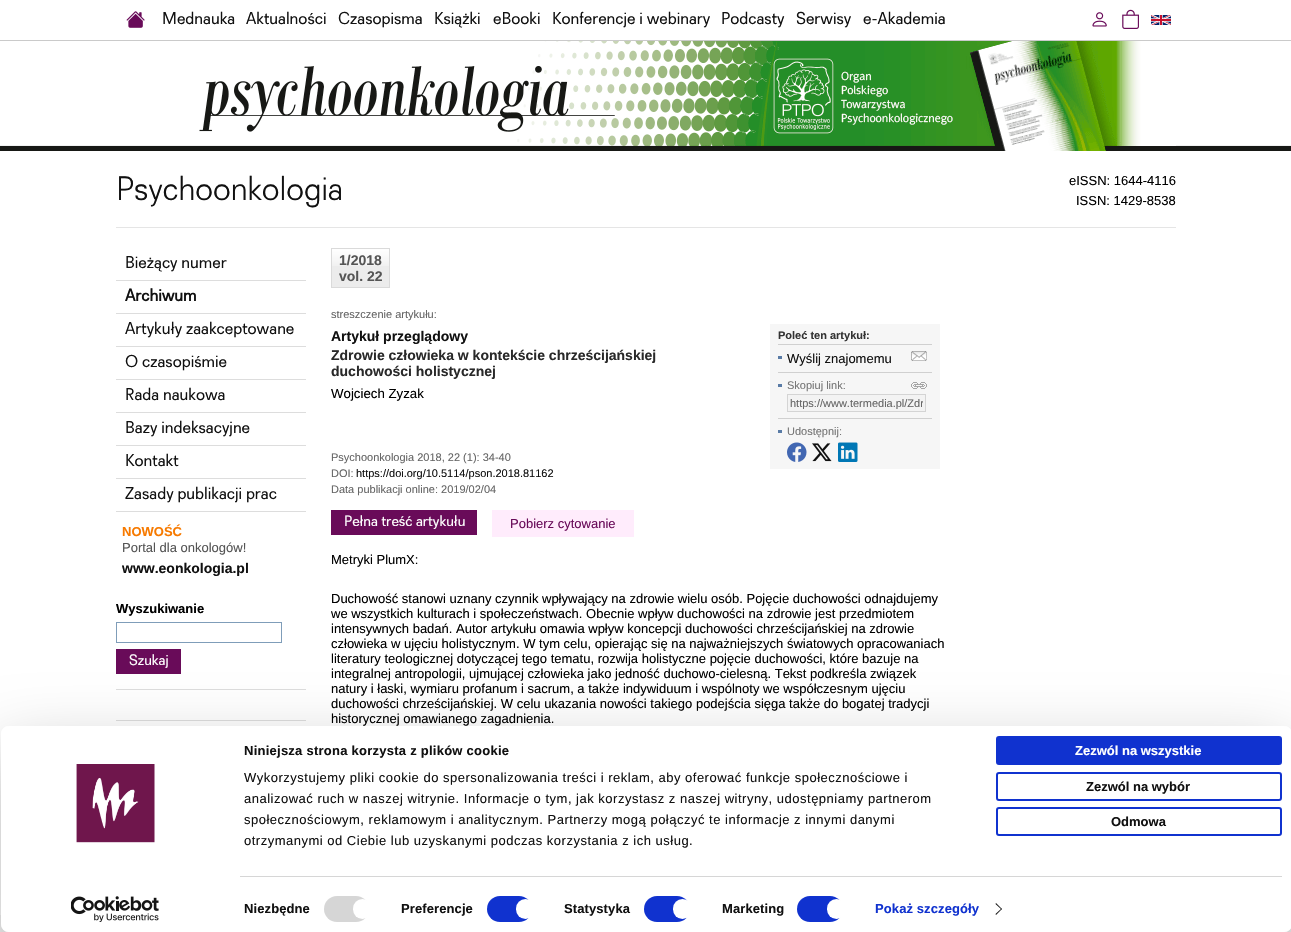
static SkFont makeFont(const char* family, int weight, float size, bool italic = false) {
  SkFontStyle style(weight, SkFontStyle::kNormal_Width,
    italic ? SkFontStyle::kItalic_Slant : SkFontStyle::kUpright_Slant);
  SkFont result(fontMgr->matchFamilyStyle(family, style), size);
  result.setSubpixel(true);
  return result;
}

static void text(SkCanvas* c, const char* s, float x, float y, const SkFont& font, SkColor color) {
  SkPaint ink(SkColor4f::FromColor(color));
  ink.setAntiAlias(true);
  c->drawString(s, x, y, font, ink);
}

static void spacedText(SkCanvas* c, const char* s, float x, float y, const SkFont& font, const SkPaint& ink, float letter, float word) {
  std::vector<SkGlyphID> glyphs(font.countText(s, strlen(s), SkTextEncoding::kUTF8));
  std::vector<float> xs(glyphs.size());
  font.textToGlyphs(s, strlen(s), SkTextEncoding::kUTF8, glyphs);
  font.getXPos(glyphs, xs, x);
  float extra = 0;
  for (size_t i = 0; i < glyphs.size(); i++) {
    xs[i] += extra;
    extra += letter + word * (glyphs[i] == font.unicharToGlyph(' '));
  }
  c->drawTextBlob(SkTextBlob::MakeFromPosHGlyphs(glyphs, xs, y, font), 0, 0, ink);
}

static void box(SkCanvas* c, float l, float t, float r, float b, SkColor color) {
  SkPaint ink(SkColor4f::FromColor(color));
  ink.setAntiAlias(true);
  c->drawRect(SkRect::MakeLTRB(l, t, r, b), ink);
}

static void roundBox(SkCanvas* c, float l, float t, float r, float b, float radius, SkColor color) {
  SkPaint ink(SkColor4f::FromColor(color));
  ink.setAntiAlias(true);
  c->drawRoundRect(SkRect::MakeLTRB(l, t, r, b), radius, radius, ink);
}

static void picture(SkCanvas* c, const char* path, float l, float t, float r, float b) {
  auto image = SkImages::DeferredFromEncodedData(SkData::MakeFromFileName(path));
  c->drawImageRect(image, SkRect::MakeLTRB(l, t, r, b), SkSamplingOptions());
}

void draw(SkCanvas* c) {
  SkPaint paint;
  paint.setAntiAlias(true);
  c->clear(0xfff5f5f5);
  box(c, 0, 0, 1291, 40, 0xffffffff);
  box(c, 0, 40, 1291, 41, 0xffcacaca);
  picture(c, "img_01.png", 126, 11, 145, 28);
  SkFont face1 = makeFont("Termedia", 400, 17);
  text(c, "Mednauka", 162, 24, face1, 0xff111111);
  text(c, "Aktualności", 246, 24, face1, 0xff111111);
  text(c, "Czasopisma", 338, 24, face1, 0xff111111);
  text(c, "Książki", 434, 24, face1, 0xff111111);
  text(c, "eBooki", 493, 24, face1, 0xff111111);
  text(c, "Konferencje i webinary", 552, 24, face1, 0xff111111);
  text(c, "Podcasty", 721, 24, face1, 0xff111111);
  text(c, "Serwisy", 796, 24, face1, 0xff111111);
  text(c, "e-Akademia", 863, 24, face1, 0xff111111);
  picture(c, "img_02.png", 1092, 12, 1107, 27);
  picture(c, "img_03.png", 1122, 9, 1139, 29);
  picture(c, "img_04.png", 1151, 15, 1171, 25);
  picture(c, "img_05.png", 0, 41, 1291, 151);
  picture(c, "img_06.png", 199, 41, 1176, 151);
  box(c, 0, 151, 1291, 915, 0xffffffff);
  box(c, 116, 227, 1176, 228, 0xffe5e5e5);
  SkFont face2 = makeFont("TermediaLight", 300, 33.75f);
  text(c, "Psychoonkologia", 116, 200, face2, 0xff111111);
  SkFont face3 = makeFont("Liberation Sans", 400, 13);
  text(c, "eISSN: 1644-4116", 1069, 185, face3, 0xff000000);
  text(c, "ISSN: 1429-8538", 1076, 205, face3, 0xff000000);
  box(c, 116, 280, 306, 281, 0xffdddddd);
  text(c, "Bieżący numer", 125, 268, face1, 0xff111111);
  box(c, 116, 313, 306, 314, 0xffdddddd);
  SkFont face4 = makeFont("Termedia", 700, 17);
  text(c, "Archiwum", 125, 301, face4, 0xff111111);
  box(c, 116, 346, 306, 347, 0xffdddddd);
  text(c, "Artykuły zaakceptowane", 125, 334, face1, 0xff111111);
  box(c, 116, 379, 306, 380, 0xffdddddd);
  text(c, "O czasopiśmie", 125, 367, face1, 0xff111111);
  box(c, 116, 412, 306, 413, 0xffdddddd);
  text(c, "Rada naukowa", 125, 400, face1, 0xff111111);
  box(c, 116, 445, 306, 446, 0xffdddddd);
  text(c, "Bazy indeksacyjne", 125, 433, face1, 0xff111111);
  box(c, 116, 478, 306, 479, 0xffdddddd);
  text(c, "Kontakt", 125, 466, face1, 0xff111111);
  box(c, 116, 511, 306, 512, 0xffdddddd);
  text(c, "Zasady publikacji prac", 125, 499, face1, 0xff111111);
  SkFont face5 = makeFont("Liberation Sans", 700, 13);
  text(c, "NOWOŚĆ", 122, 536, face5, 0xfff77a00);
  text(c, "Portal dla onkologów!", 122, 552, face3, 0xff555555);
  SkFont face6 = makeFont("Liberation Sans", 700, 14);
  text(c, "www.eonkologia.pl", 122, 573, face6, 0xff111111);
  box(c, 116, 689, 306, 690, 0xffdddddd);
  text(c, "Wyszukiwanie", 116, 613, face5, 0xff000000);
  paint.setStyle(SkPaint::kStroke_Style);
  paint.setStrokeWidth(1);
  paint.setColor(0xff7f9db9);
  c->drawRect(SkRect::MakeLTRB(116.5f, 622.5f, 281.5f, 642.5f), paint);
  box(c, 116, 649, 181, 674, 0xff690b59);
  SkFont face7 = makeFont("Termedia", 400, 15);
  text(c, "Szukaj", 129, 665, face7, 0xffffffff);
  box(c, 116, 720, 306, 721, 0xffdddddd);
  box(c, 332, 266, 389, 287, 0xffececec);
  picture(c, "img_07.png", 332, 249, 389, 266);
  paint.setColor(0xffdadada);
  c->drawRect(SkRect::MakeLTRB(331.5f, 248.5f, 389.5f, 287.5f), paint);
  text(c, "1/2018", 339, 265, face6, 0xff555555);
  text(c, "vol. 22", 339, 281, face6, 0xff555555);
  SkFont face8 = makeFont("Liberation Sans", 400, 11);
  text(c, "streszczenie artykułu:", 331, 318, face8, 0xff656565);
  text(c, "Artykuł przeglądowy", 331, 341, face6, 0xff111111);
  box(c, 770, 324, 940, 469, 0xfff6f6f6);
  box(c, 778, 344, 932, 345, 0xffd0d0d0);
  SkFont face9 = makeFont("Liberation Sans", 700, 11);
  text(c, "Poleć ten artykuł:", 778, 339, face9, 0xff333333);
  box(c, 778, 356, 782, 359, 0xff597ba6);
  box(c, 778, 372, 932, 373, 0xffd0d0d0);
  picture(c, "img_08.png", 911, 351, 927, 361);
  text(c, "Wyślij znajomemu", 787, 363, face3, 0xff111111);
  box(c, 778, 384, 782, 387, 0xff597ba6);
  box(c, 778, 418, 932, 419, 0xffd0d0d0);
  picture(c, "img_09.png", 911, 382, 927, 389);
  text(c, "Skopiuj link:", 787, 389, face8, 0xff757575);
  paint.setStyle(SkPaint::kFill_Style);
  paint.setColor(0xfff3f3f3);
  c->drawRect(SkRect::MakeLTRB(787.5f, 394.5f, 925.5f, 411.5f), paint);
  paint.setStyle(SkPaint::kStroke_Style);
  paint.setColor(0xffd4d4d4);
  c->drawRect(SkRect::MakeLTRB(787.5f, 394.5f, 925.5f, 411.5f), paint);
  c->save();
  c->clipRect(SkRect::MakeLTRB(790, 397, 923, 409));
  text(c, "https://www.termedia.pl/Zdr", 790, 407, face8, 0xff656565);
  c->restore();
  box(c, 778, 430, 782, 433, 0xff597ba6);
  text(c, "Udostępnij:", 787, 435, face8, 0xff757575);
  picture(c, "img_10.png", 787, 442, 807, 462);
  picture(c, "img_11.png", 812, 443, 832, 462);
  picture(c, "img_12.png", 838, 442, 858, 462);
  text(c, "Zdrowie człowieka w kontekście chrześcijańskiej", 331, 360, face6, 0xff292929);
  text(c, "duchowości holistycznej", 331, 376, face6, 0xff292929);
  SkFont face10 = makeFont("Liberation Sans", 400, 13.25f);
  text(c, "Wojciech Zyzak", 331, 398, face10, 0xff000000);
  text(c, "Psychoonkologia 2018, 22 (1): 34-40", 331, 461, face8, 0xff656565);
  text(c, "DOI:", 331, 477, face8, 0xff656565);
  text(c, "https://doi.org/10.5114/pson.2018.81162", 356, 477, face8, 0xff111111);
  text(c, "Data publikacji online: 2019/02/04", 331, 493, face8, 0xff656565);
  box(c, 331, 510, 477, 535, 0xff690b59);
  text(c, "Pełna treść artykułu", 344, 526, face7, 0xffffffff);
  box(c, 492, 510, 634, 537, 0xffffecfc);
  text(c, "Pobierz cytowanie", 510, 528, face3, 0xff690b59);
  text(c, "Metryki PlumX:", 331, 564, face3, 0xff000000);
  text(c, "Duchowość stanowi uznany czynnik wpływający na zdrowie wielu osób. Pojęcie duchowości odnajdujemy", 331, 603, face3, 0xff000000);
  text(c, "we wszystkich kulturach i społeczeństwach. Obecnie wpływ duchowości na zdrowie jest przedmiotem", 331, 618, face3, 0xff000000);
  text(c, "intensywnych badań. Autor artykułu omawia wpływ koncepcji duchowości chrześcijańskiej na zdrowie", 331, 633, face3, 0xff000000);
  text(c, "człowieka w ujęciu holistycznym. W tym celu, opierając się na najważniejszych światowych opracowaniach", 331, 648, face3, 0xff000000);
  text(c, "literatury teologicznej dotyczącej tego tematu, rozwija holistyczne pojęcie duchowości, które bazuje na", 331, 663, face3, 0xff000000);
  text(c, "integralnej antropologii, ujmującej człowieka jako jedność duchowo-cielesną. Tekst podkreśla związek", 331, 678, face3, 0xff000000);
  text(c, "natury i łaski, wymiaru profanum i sacrum, a także indywiduum i wspólnoty we współczesnym ujęciu", 331, 693, face3, 0xff000000);
  text(c, "duchowości chrześcijańskiej. W celu ukazania nowości takiego podejścia sięga także do bogatej tradycji", 331, 708, face3, 0xff000000);
  text(c, "historycznej omawianego zagadnienia.", 331, 723, face3, 0xff000000);
  c->save();
  c->clipPath(SkPathBuilder(SkPathFillType::kEvenOdd).moveTo(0, 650).lineTo(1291, 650).lineTo(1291, 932).lineTo(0, 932).close().moveTo(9, 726).lineTo(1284, 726).cubicTo(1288.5f, 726, 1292, 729.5f, 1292, 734).lineTo(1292, 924).cubicTo(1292, 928.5f, 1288.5f, 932, 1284, 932).lineTo(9, 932).cubicTo(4.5f, 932, 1, 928.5f, 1, 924).lineTo(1, 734).cubicTo(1, 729.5f, 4.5f, 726, 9, 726).close().detach(), true);
  paint.setStyle(SkPaint::kFill_Style);
  paint.setColor(0x4d000000);
  paint.setMaskFilter(SkMaskFilter::MakeBlur(kNormal_SkBlurStyle, 35));
  c->drawRoundRect(SkRect::MakeLTRB(1, 756, 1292, 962), 8, 8, paint);
  paint.setMaskFilter(nullptr);
  c->restore();
  roundBox(c, 1, 726, 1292, 932, 8, 0xffffffff);
  picture(c, "img_13.png", 76, 764, 155, 843);
  picture(c, "img_14.png", 71, 896, 159, 922);
  paint.setColor(0xff111111);
  spacedText(c, "Niniejsza strona korzysta z plików cookie", 244, 755, face5, paint, 0.25f, 0);
  spacedText(c, "Wykorzystujemy pliki cookie do spersonalizowania treści i reklam, aby oferować funkcje społecznościowe i", 244, 782, face3, paint, 0.5f, 0);
  spacedText(c, "analizować ruch w naszej witrynie. Informacje o tym, jak korzystasz z naszej witryny, udostępniamy partnerom", 244, 803, face3, paint, 0.5f, 0);
  spacedText(c, "społecznościowym, reklamowym i analitycznym. Partnerzy mogą połączyć te informacje z innymi danymi", 244, 824, face3, paint, 0.5f, 0);
  spacedText(c, "otrzymanymi od Ciebie lub uzyskanymi podczas korzystania z ich usług.", 244, 845, face3, paint, 0.5f, 0);
  box(c, 240, 876, 1282, 877, 0xffd6d6d6);
  spacedText(c, "Niezbędne", 244, 913, face5, paint, 0.1f, 0);
  roundBox(c, 324, 896, 369, 922, 13, 0xffd6d6d6);
  roundBox(c, 353, 899, 372, 919, 9.5f, 0xffffffff);
  spacedText(c, "Preferencje", 401, 913, face5, paint, 0.1f, 0);
  roundBox(c, 487, 896, 532, 922, 13, 0xff1032cf);
  roundBox(c, 516, 899, 535, 919, 9.5f, 0xffffffff);
  spacedText(c, "Statystyka", 564, 913, face5, paint, 0.1f, 0);
  roundBox(c, 644, 896, 690, 922, 13, 0xff1032cf);
  roundBox(c, 673, 899, 692, 919, 9.5f, 0xffffffff);
  spacedText(c, "Marketing", 722, 913, face5, paint, 0.1f, 0);
  roundBox(c, 797, 896, 843, 922, 13, 0xff1032cf);
  roundBox(c, 827, 899, 846, 919, 9.5f, 0xffffffff);
  paint.setColor(0xff1032cf);
  spacedText(c, "Pokaż szczegóły", 875, 913, face5, paint, 0.1f, 0);
  paint.setColor(0xff141414);
  c->drawPath(SkPathBuilder().moveTo(996, 903).lineTo(1002, 909).lineTo(1001.5f, 909.5f).lineTo(995.5f, 904).close().detach(), paint);
  c->drawPath(SkPathBuilder().moveTo(1001.5f, 908.5f).lineTo(1002, 909).lineTo(996, 915).lineTo(995.5f, 914).close().detach(), paint);
  paint.setColor(0xff1032cf);
  c->drawRoundRect(SkRect::MakeLTRB(997, 737, 1281, 764), 2, 2, paint);
  paint.setStyle(SkPaint::kStroke_Style);
  paint.setStrokeWidth(2);
  c->drawRoundRect(SkRect::MakeLTRB(997, 737, 1281, 764), 2, 2, paint);
  text(c, "Zezwól na wszystkie", 1075, 755, face5, 0xffffffff);
  c->drawRoundRect(SkRect::MakeLTRB(997, 773, 1281, 800), 2, 2, paint);
  text(c, "Zezwól na wybór", 1086, 791, face5, 0xff111111);
  c->drawRoundRect(SkRect::MakeLTRB(997, 808, 1281, 835), 2, 2, paint);
  text(c, "Odmowa", 1111, 826, face5, 0xff111111);
}
